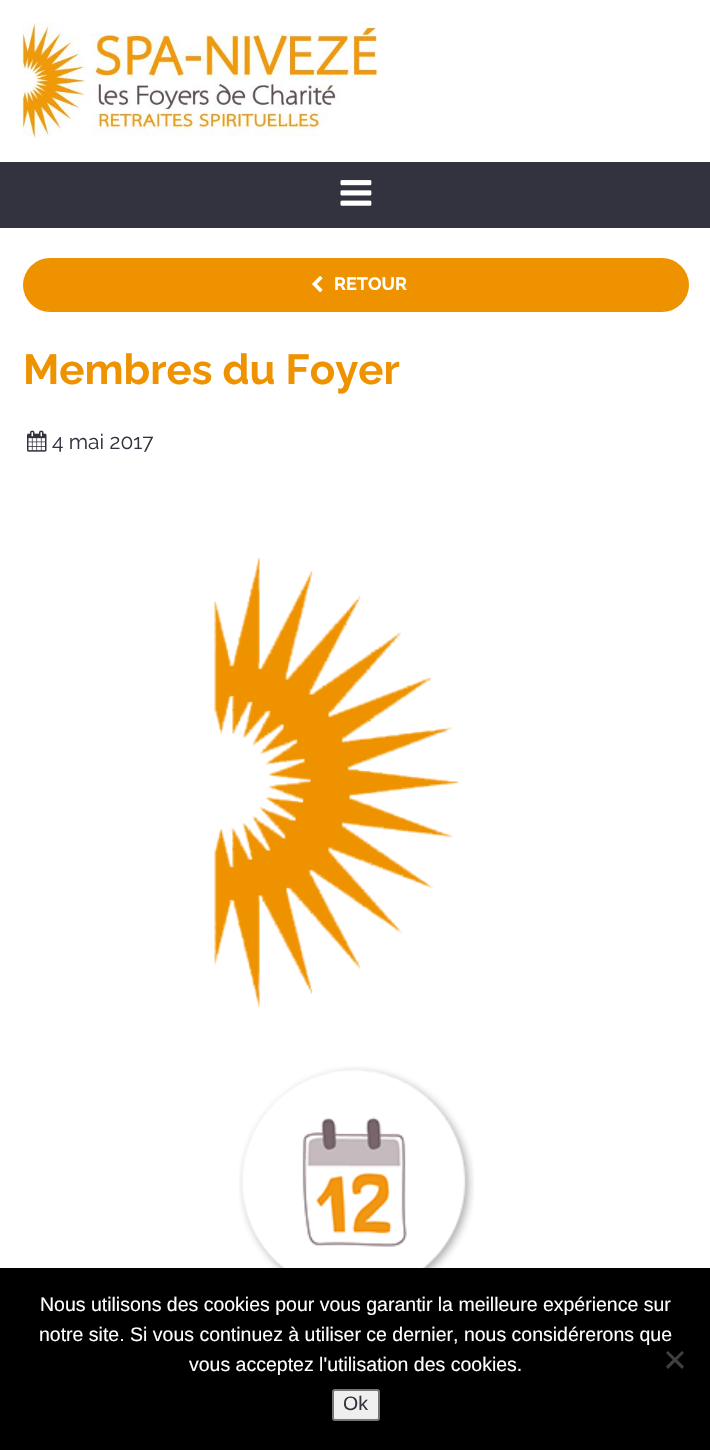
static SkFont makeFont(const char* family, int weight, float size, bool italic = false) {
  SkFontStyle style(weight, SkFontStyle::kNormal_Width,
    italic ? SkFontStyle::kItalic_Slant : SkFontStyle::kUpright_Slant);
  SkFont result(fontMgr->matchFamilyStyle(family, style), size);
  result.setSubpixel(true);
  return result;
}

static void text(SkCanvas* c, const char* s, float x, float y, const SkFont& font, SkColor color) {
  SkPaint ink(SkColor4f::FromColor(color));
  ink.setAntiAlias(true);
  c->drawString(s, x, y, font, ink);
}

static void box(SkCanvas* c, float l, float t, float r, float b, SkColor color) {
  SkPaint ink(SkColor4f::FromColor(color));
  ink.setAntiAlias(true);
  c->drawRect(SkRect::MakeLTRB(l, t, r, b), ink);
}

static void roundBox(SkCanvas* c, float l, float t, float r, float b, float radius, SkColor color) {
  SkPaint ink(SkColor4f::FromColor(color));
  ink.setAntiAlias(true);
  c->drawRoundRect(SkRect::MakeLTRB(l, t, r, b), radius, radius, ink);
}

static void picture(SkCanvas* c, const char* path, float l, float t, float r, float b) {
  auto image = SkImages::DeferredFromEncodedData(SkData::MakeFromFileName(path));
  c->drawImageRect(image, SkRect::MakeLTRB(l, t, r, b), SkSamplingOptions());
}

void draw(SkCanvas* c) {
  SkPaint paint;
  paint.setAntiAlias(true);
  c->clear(0xffffffff);
  picture(c, "img_01.png", 22, 22, 377, 140);
  box(c, 0, 162, 710, 228, 0xff33333f);
  picture(c, "img_02.png", 340, 180, 372, 206);
  roundBox(c, 23, 258, 689, 312, 27, 0xffef9200);
  picture(c, "img_03.png", 312, 276, 323, 293);
  SkFont face1 = makeFont("Raleway", 700, 18);
  text(c, "RETOUR", 334, 290, face1, 0xffffffff);
  SkFont face2 = makeFont("Raleway", 700, 42);
  text(c, "Membres du Foyer", 23, 384, face2, 0xffef9200);
  picture(c, "img_04.png", 27, 430, 47, 452);
  SkFont face3 = makeFont("Raleway", 400, 21);
  text(c, "4 mai 2017", 52, 449, face3, 0xff33333f);
  picture(c, "img_05.png", 214, 557, 460, 1008);
  picture(c, "img_06.png", 239, 1066, 474, 1268);
  box(c, 0, 1268, 710, 1450, 0xff000000);
  SkFont face4 = makeFont("Liberation Sans", 400, 19.5f);
  text(c, "Nous utilisons des cookies pour vous garantir la meilleure expérience sur", 40, 1311, face4, 0xffffffff);
  text(c, "notre site. Si vous continuez à utiliser ce dernier, nous considérerons que", 39, 1341, face4, 0xffffffff);
  text(c, "vous acceptez l'utilisation des cookies.", 189, 1371, face4, 0xffffffff);
  paint.setColor(0xff404040);
  c->drawPath(SkPathBuilder().moveTo(682, 1351).lineTo(684, 1353).lineTo(668, 1369).lineTo(666, 1366.5f).close().detach(), paint);
  c->drawPath(SkPathBuilder().moveTo(666, 1353).lineTo(668, 1351).lineTo(684, 1366.5f).lineTo(682, 1369).close().detach(), paint);
  paint.setColor(0xffefefef);
  c->drawRoundRect(SkRect::MakeLTRB(333, 1390, 379, 1420), 2, 2, paint);
  paint.setStyle(SkPaint::kStroke_Style);
  paint.setStrokeWidth(2);
  paint.setColor(0xff767676);
  c->drawRoundRect(SkRect::MakeLTRB(333, 1390, 379, 1420), 2, 2, paint);
  text(c, "Ok", 343, 1410, face4, 0xff33333f);
}
